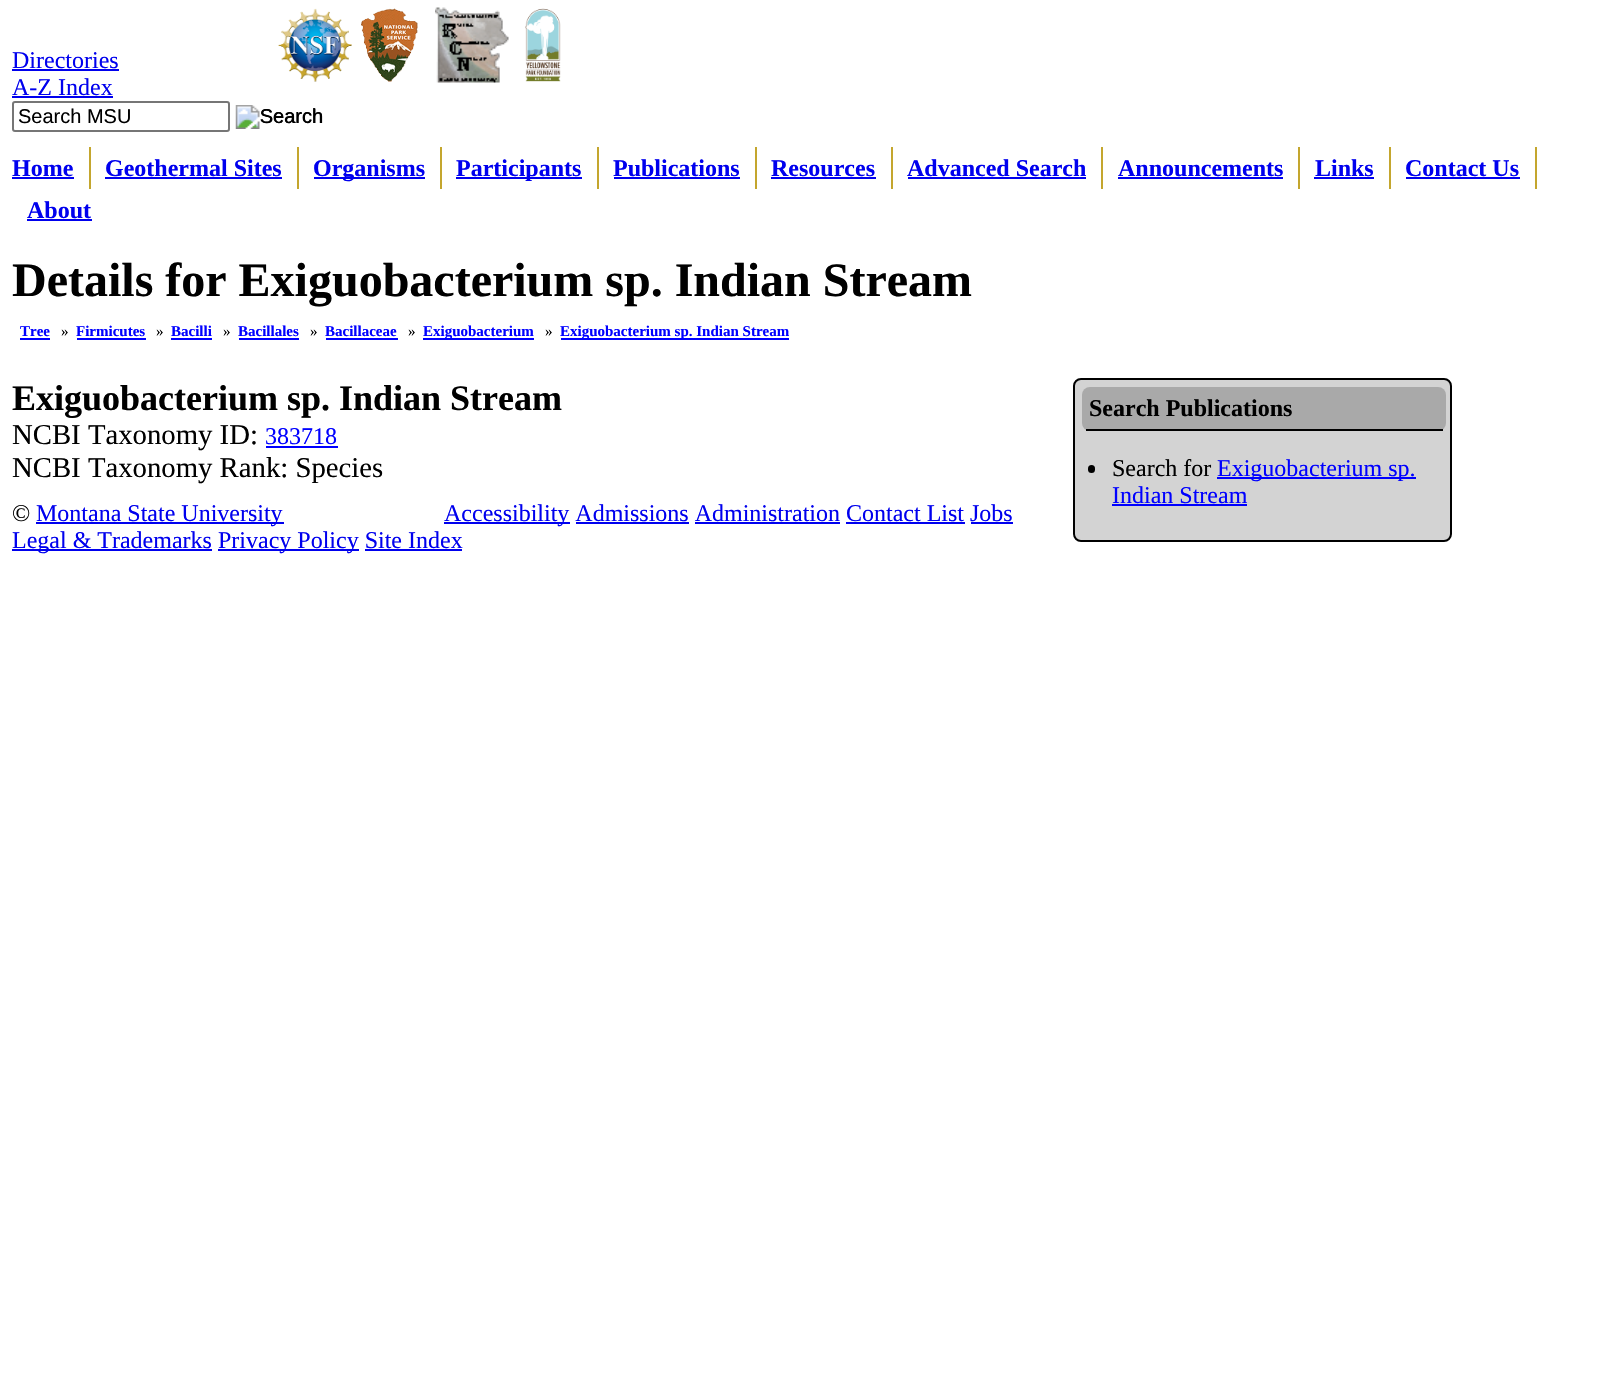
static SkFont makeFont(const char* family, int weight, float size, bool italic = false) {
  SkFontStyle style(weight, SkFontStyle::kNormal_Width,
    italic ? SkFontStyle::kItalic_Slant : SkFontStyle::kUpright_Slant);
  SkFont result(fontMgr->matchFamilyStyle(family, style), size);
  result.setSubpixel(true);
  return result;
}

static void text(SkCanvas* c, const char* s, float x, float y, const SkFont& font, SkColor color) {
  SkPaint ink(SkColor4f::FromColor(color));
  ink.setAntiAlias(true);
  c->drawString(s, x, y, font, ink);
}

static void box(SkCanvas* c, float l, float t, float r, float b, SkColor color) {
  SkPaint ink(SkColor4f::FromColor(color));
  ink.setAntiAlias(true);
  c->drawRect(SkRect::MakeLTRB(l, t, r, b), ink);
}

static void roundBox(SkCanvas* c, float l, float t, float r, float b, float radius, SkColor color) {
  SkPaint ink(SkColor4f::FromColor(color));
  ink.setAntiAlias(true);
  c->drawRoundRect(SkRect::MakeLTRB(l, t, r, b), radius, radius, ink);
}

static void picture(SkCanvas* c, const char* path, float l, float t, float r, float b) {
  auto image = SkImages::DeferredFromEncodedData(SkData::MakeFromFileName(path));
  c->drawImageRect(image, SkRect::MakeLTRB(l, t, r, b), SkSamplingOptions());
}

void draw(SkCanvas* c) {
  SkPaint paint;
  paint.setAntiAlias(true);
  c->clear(0xffffffff);
  SkFont face1 = makeFont("Liberation Serif", 400, 24);
  text(c, "Directories", 12, 68, face1, 0xff0000ee);
  box(c, 12, 69, 119, 71, 0xff0000ee);
  text(c, "A-Z Index", 12, 95, face1, 0xff0000ee);
  box(c, 12, 96, 113, 98, 0xff0000ee);
  picture(c, "img_01.png", 278, 8, 352, 82);
  picture(c, "img_02.png", 361, 8, 418, 82);
  picture(c, "img_03.png", 435, 7, 509, 83);
  picture(c, "img_04.png", 525, 8, 561, 82);
  paint.setStyle(SkPaint::kStroke_Style);
  paint.setStrokeWidth(2);
  paint.setColor(0xff767676);
  c->drawRoundRect(SkRect::MakeLTRB(13, 102, 229, 131), 2, 2, paint);
  SkFont face2 = makeFont("Liberation Sans", 400, 20);
  text(c, "Search MSU", 18, 123, face2, 0xff000000);
  picture(c, "img_05.png", 235, 105, 322, 129);
  text(c, "Search", 260, 123, face2, 0xff000000);
  box(c, 89, 147, 91, 189, 0xffc4a62e);
  SkFont face3 = makeFont("Liberation Serif", 700, 24);
  text(c, "Home", 12, 176, face3, 0xff0000ee);
  box(c, 12, 177, 74, 179, 0xff0000ee);
  box(c, 297, 147, 299, 189, 0xffc4a62e);
  text(c, "Geothermal Sites", 105, 176, face3, 0xff0000ee);
  box(c, 105, 177, 282, 179, 0xff0000ee);
  box(c, 440, 147, 442, 189, 0xffc4a62e);
  box(c, 314, 177, 425, 179, 0xff0000ee);
  text(c, "Organisms", 313, 176, face3, 0xff0000ee);
  box(c, 597, 147, 599, 189, 0xffc4a62e);
  box(c, 456, 177, 582, 179, 0xff0000ee);
  text(c, "Participants", 456, 176, face3, 0xff0000ee);
  box(c, 755, 147, 757, 189, 0xffc4a62e);
  text(c, "Publications", 613, 176, face3, 0xff0000ee);
  box(c, 614, 177, 740, 179, 0xff0000ee);
  box(c, 891, 147, 893, 189, 0xffc4a62e);
  text(c, "Resources", 771, 176, face3, 0xff0000ee);
  box(c, 771, 177, 876, 179, 0xff0000ee);
  box(c, 1101, 147, 1103, 189, 0xffc4a62e);
  text(c, "Advanced Search", 907, 176, face3, 0xff0000ee);
  box(c, 908, 177, 1086, 179, 0xff0000ee);
  box(c, 1298, 147, 1300, 189, 0xffc4a62e);
  text(c, "Announcements", 1118, 176, face3, 0xff0000ee);
  box(c, 1118, 177, 1283, 179, 0xff0000ee);
  box(c, 1389, 147, 1391, 189, 0xffc4a62e);
  text(c, "Links", 1315, 176, face3, 0xff0000ee);
  box(c, 1314, 177, 1374, 179, 0xff0000ee);
  box(c, 1535, 147, 1537, 189, 0xffc4a62e);
  text(c, "Contact Us", 1405, 176, face3, 0xff0000ee);
  box(c, 1406, 177, 1520, 179, 0xff0000ee);
  text(c, "About", 27, 218, face3, 0xff0000ee);
  box(c, 27, 219, 92, 221, 0xff0000ee);
  SkFont face4 = makeFont("Liberation Serif", 700, 48);
  text(c, "Details for Exiguobacterium sp. Indian Stream", 12, 296, face4, 0xff000000);
  SkFont face5 = makeFont("Liberation Serif", 700, 15);
  text(c, "Tree", 20, 336, face5, 0xff0000ff);
  box(c, 20, 338, 50, 340, 0xff0000ff);
  SkFont face6 = makeFont("Liberation Serif", 400, 15);
  text(c, "»", 61, 336, face6, 0xff000000);
  text(c, "Firmicutes", 76, 336, face5, 0xff0000ff);
  box(c, 77, 338, 146, 340, 0xff0000ff);
  text(c, "»", 156, 336, face6, 0xff000000);
  text(c, "Bacilli", 171, 336, face5, 0xff0000ff);
  box(c, 171, 338, 212, 340, 0xff0000ff);
  text(c, "»", 223, 336, face6, 0xff000000);
  text(c, "Bacillales", 238, 336, face5, 0xff0000ff);
  box(c, 239, 338, 299, 340, 0xff0000ff);
  text(c, "»", 310, 336, face6, 0xff000000);
  text(c, "Bacillaceae", 325, 336, face5, 0xff0000ff);
  box(c, 326, 338, 398, 340, 0xff0000ff);
  text(c, "»", 408, 336, face6, 0xff000000);
  box(c, 423, 338, 534, 340, 0xff0000ff);
  text(c, "Exiguobacterium", 423, 336, face5, 0xff0000ff);
  text(c, "»", 545, 336, face6, 0xff000000);
  box(c, 561, 338, 789, 340, 0xff0000ff);
  text(c, "Exiguobacterium sp. Indian Stream", 560, 336, face5, 0xff0000ff);
  SkFont face7 = makeFont("Liberation Serif", 700, 36);
  text(c, "Exiguobacterium sp. Indian Stream", 12, 410, face7, 0xff000000);
  SkFont face8 = makeFont("Liberation Serif", 400, 28.75f);
  text(c, "NCBI Taxonomy ID:", 12, 444, face8, 0xff000000);
  text(c, "383718", 265, 444, face1, 0xff0000ff);
  box(c, 266, 446, 338, 448, 0xff0000ff);
  text(c, "NCBI Taxonomy Rank: Species", 12, 477, face8, 0xff000000);
  paint.setStyle(SkPaint::kFill_Style);
  paint.setColor(0xffd3d3d3);
  c->drawRoundRect(SkRect::MakeLTRB(1074, 379, 1451, 541), 7, 7, paint);
  paint.setStyle(SkPaint::kStroke_Style);
  paint.setColor(0xff000000);
  c->drawRoundRect(SkRect::MakeLTRB(1074, 379, 1451, 541), 7, 7, paint);
  roundBox(c, 1082, 387, 1446, 431, 8, 0xffa9a9a9);
  box(c, 1086, 429, 1443, 431, 0xff000000);
  text(c, "Search Publications", 1089, 416, face3, 0xff000000);
  roundBox(c, 1088, 465, 1095, 473, 3.5f, 0xff000000);
  text(c, "Search for", 1112, 476, face1, 0xff000000);
  box(c, 1217, 477, 1416, 479, 0xff0000ff);
  text(c, "Exiguobacterium sp.", 1217, 476, face1, 0xff0000ff);
  text(c, "Indian Stream", 1112, 503, face1, 0xff0000ff);
  box(c, 1112, 504, 1247, 506, 0xff0000ff);
  text(c, "©", 12, 521, face1, 0xff000000);
  box(c, 36, 522, 284, 524, 0xff0000ee);
  text(c, "Montana State University", 36, 521, face1, 0xff0000ee);
  box(c, 444, 522, 570, 524, 0xff0000ee);
  text(c, "Accessibility Admissions Administration Contact List Jobs", 444, 521, face1, 0xff0000ee);
  box(c, 576, 522, 689, 524, 0xff0000ee);
  box(c, 695, 522, 840, 524, 0xff0000ee);
  box(c, 846, 522, 965, 524, 0xff0000ee);
  box(c, 971, 522, 1013, 524, 0xff0000ee);
  box(c, 12, 549, 212, 551, 0xff0000ee);
  text(c, "Legal & Trademarks", 12, 548, face1, 0xff0000ee);
  box(c, 218, 549, 359, 551, 0xff0000ee);
  text(c, "Privacy Policy Site Index", 218, 548, face1, 0xff0000ee);
  box(c, 365, 549, 462, 551, 0xff0000ee);
}
